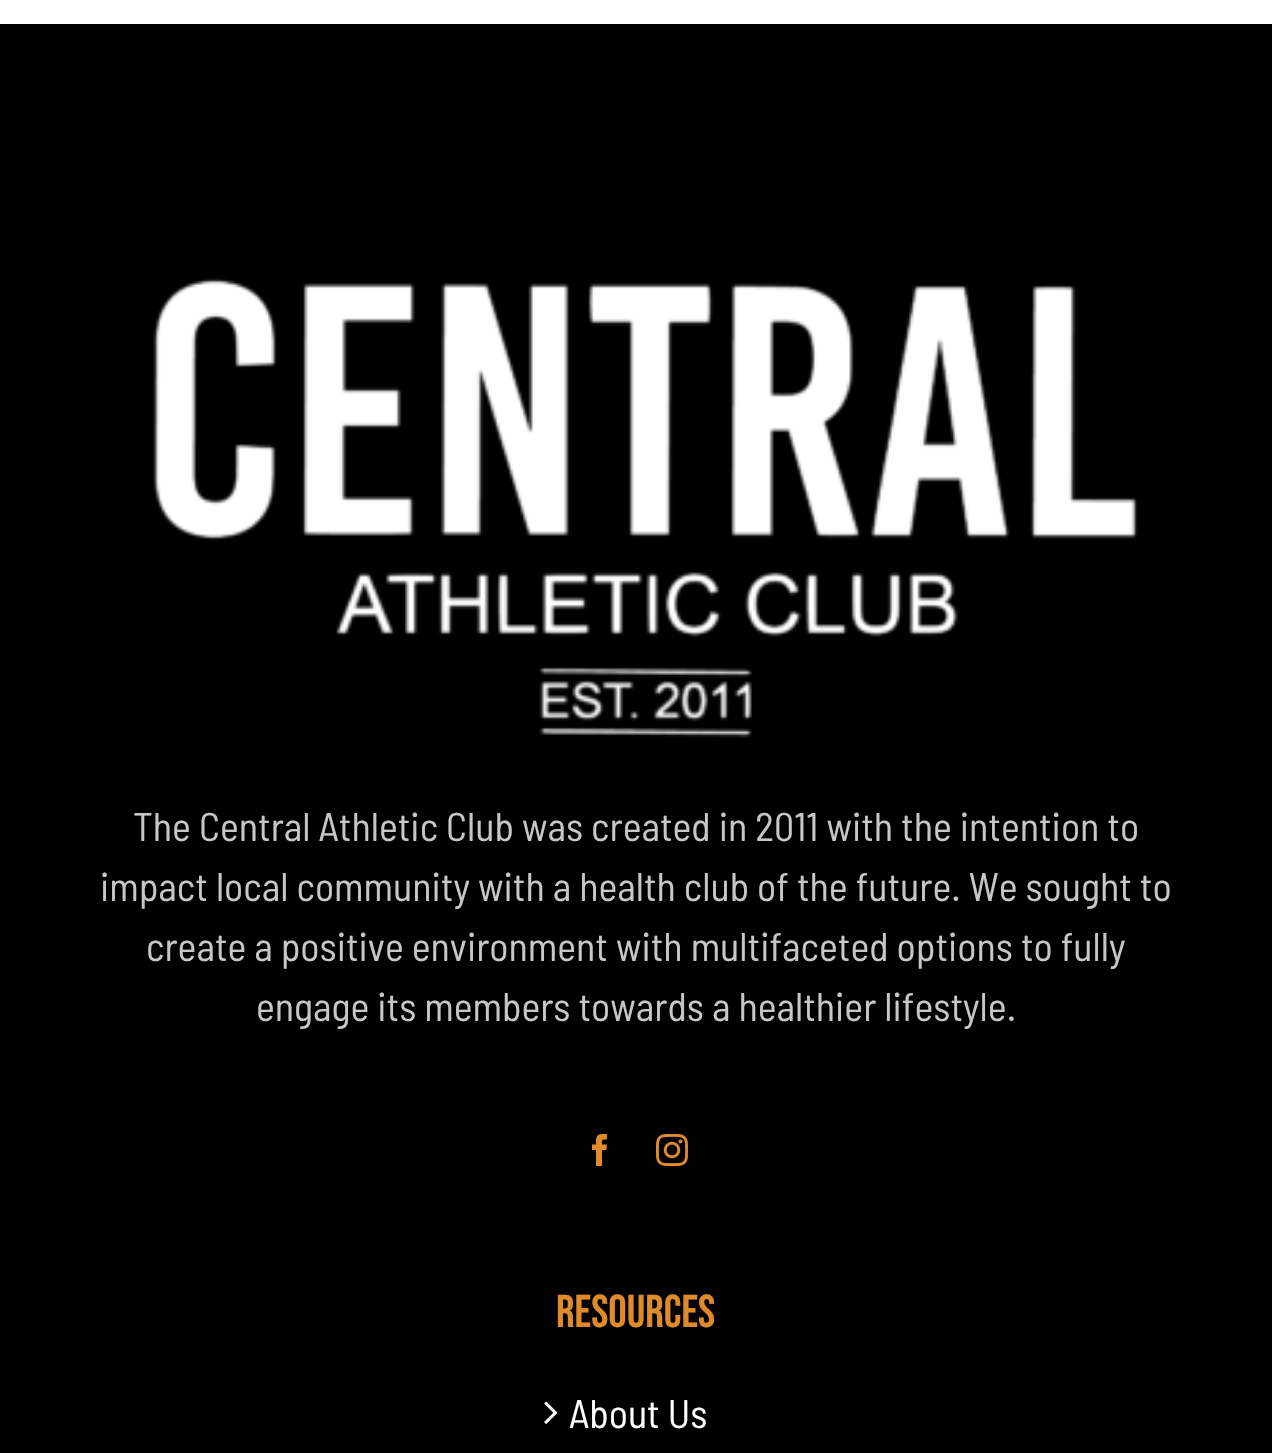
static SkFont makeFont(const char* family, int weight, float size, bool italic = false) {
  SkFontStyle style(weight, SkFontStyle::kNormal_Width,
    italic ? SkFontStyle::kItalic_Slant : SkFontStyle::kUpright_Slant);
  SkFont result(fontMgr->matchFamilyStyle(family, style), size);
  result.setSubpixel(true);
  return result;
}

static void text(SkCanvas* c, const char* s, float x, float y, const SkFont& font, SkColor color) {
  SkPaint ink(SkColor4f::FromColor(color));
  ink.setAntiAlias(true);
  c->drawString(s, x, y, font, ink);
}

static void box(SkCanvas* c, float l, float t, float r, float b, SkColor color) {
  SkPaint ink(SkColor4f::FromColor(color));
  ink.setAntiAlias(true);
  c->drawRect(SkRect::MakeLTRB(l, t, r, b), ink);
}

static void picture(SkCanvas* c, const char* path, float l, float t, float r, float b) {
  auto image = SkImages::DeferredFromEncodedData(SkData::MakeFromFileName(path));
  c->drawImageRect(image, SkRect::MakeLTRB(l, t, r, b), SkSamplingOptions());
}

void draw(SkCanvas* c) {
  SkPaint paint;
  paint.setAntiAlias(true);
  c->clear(0xffffffff);
  box(c, 0, 24, 1272, 1453, 0xff000000);
  picture(c, "img_01.png", 153, 278, 1138, 738);
  SkFont face1 = makeFont("Barlow Semi Condensed", 400, 40);
  text(c, "The Central Athletic Club was created in 2011 with the intention to", 133, 841, face1, 0xffc7c7c7);
  text(c, "impact local community with a health club of the future. We sought to", 100, 901, face1, 0xffc7c7c7);
  text(c, "create a positive environment with multifaceted options to fully", 146, 961, face1, 0xffc7c7c7);
  text(c, "engage its members towards a healthier lifestyle.", 256, 1021, face1, 0xffc7c7c7);
  picture(c, "img_02.png", 592, 1134, 607, 1166);
  picture(c, "img_03.png", 656, 1134, 688, 1166);
  SkFont face2 = makeFont("Bebas Neue", 400, 46);
  text(c, "Resources", 556, 1327, face2, 0xffe08b2a);
  picture(c, "img_04.png", 544, 1401, 558, 1424);
  text(c, "About Us", 569, 1428, face1, 0xffffffff);
}
